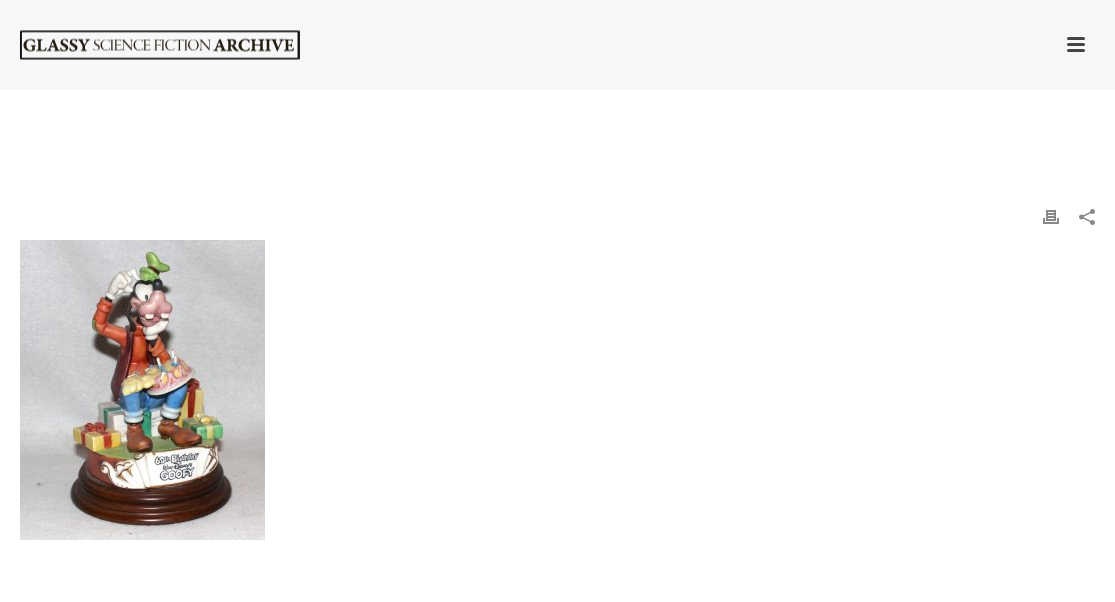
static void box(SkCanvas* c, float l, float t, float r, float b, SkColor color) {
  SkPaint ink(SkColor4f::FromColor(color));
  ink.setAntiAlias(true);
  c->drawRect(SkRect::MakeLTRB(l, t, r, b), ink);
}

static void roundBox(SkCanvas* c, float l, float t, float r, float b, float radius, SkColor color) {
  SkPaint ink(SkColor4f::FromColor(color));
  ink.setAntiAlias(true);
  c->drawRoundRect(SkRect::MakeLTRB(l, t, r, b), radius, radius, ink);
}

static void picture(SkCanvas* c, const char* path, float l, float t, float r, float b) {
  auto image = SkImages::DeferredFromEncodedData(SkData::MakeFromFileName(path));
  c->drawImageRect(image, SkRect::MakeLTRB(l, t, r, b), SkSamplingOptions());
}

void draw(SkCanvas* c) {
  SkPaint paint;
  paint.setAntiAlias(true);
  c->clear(0xffffffff);
  box(c, 0, 0, 1115, 90, 0xfff7f7f7);
  picture(c, "img_01.png", 20, 30, 300, 60);
  roundBox(c, 1067, 37, 1085, 40, 1.5f, 0xff444444);
  roundBox(c, 1067, 43, 1085, 46, 1.5f, 0xff444444);
  roundBox(c, 1067, 49, 1085, 52, 1.5f, 0xff444444);
  picture(c, "img_02.png", 1043, 210, 1059, 224);
  picture(c, "img_03.png", 1079, 209, 1095, 225);
  picture(c, "img_04.png", 20, 240, 265, 540);
}
